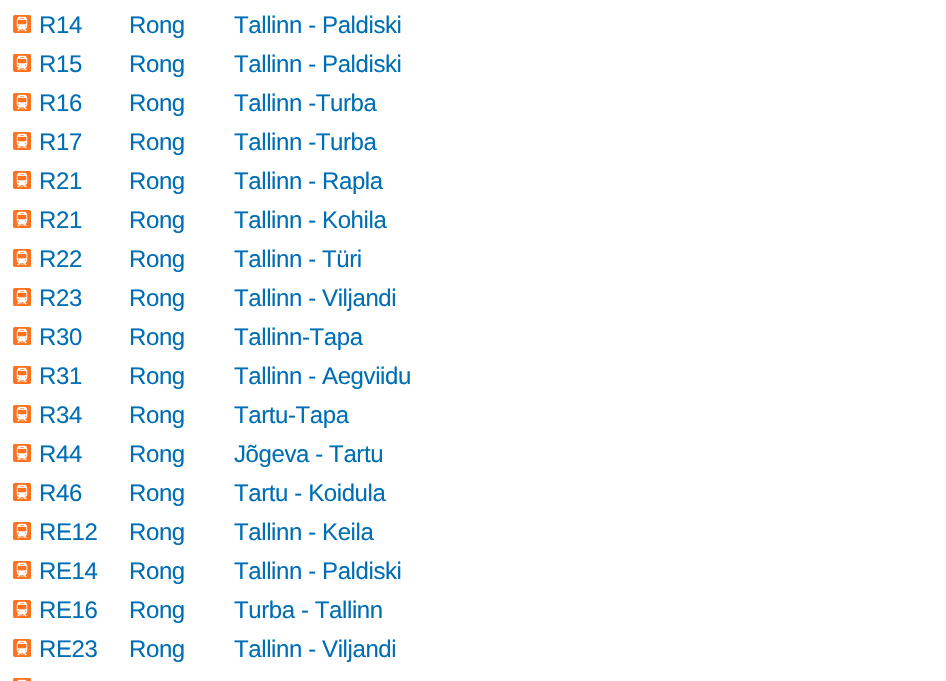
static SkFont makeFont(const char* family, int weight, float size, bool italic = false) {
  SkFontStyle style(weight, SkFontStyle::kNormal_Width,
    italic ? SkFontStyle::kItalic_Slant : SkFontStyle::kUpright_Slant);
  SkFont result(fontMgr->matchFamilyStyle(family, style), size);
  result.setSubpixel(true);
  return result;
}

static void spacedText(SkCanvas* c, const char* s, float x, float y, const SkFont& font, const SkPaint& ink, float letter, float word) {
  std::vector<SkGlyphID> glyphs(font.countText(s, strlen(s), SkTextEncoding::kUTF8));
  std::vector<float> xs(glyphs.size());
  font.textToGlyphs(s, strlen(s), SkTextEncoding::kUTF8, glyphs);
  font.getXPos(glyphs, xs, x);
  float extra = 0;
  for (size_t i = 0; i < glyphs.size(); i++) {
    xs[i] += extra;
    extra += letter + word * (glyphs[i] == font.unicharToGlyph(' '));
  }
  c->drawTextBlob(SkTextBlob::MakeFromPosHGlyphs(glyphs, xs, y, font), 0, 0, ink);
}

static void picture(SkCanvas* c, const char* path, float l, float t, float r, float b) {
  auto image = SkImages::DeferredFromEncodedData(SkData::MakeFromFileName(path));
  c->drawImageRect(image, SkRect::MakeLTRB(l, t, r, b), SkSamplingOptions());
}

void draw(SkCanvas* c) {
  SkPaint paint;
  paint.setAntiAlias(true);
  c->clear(0xffffffff);
  picture(c, "img_01.png", 13, 15, 31, 33);
  SkFont face1 = makeFont("Liberation Sans", 400, 24);
  paint.setColor(0xff006eb5);
  spacedText(c, "R14", 39, 33, face1, paint, -0.4f, 0);
  spacedText(c, "Rong", 129, 33, face1, paint, -0.4f, 0);
  spacedText(c, "Tallinn - Paldiski", 234, 33, face1, paint, -0.4f, 0);
  picture(c, "img_01.png", 13, 54, 31, 72);
  spacedText(c, "R15", 39, 72, face1, paint, -0.4f, 0);
  spacedText(c, "Rong", 129, 72, face1, paint, -0.4f, 0);
  spacedText(c, "Tallinn - Paldiski", 234, 72, face1, paint, -0.4f, 0);
  picture(c, "img_01.png", 13, 93, 31, 111);
  spacedText(c, "R16", 39, 111, face1, paint, -0.4f, 0);
  spacedText(c, "Rong", 129, 111, face1, paint, -0.4f, 0);
  spacedText(c, "Tallinn -Turba", 234, 111, face1, paint, -0.4f, 0);
  picture(c, "img_01.png", 13, 132, 31, 150);
  spacedText(c, "R17", 39, 150, face1, paint, -0.4f, 0);
  spacedText(c, "Rong", 129, 150, face1, paint, -0.4f, 0);
  spacedText(c, "Tallinn -Turba", 234, 150, face1, paint, -0.4f, 0);
  picture(c, "img_01.png", 13, 171, 31, 189);
  spacedText(c, "R21", 39, 189, face1, paint, -0.4f, 0);
  spacedText(c, "Rong", 129, 189, face1, paint, -0.4f, 0);
  spacedText(c, "Tallinn - Rapla", 234, 189, face1, paint, -0.4f, 0);
  picture(c, "img_01.png", 13, 210, 31, 228);
  spacedText(c, "R21", 39, 228, face1, paint, -0.4f, 0);
  spacedText(c, "Rong", 129, 228, face1, paint, -0.4f, 0);
  spacedText(c, "Tallinn - Kohila", 234, 228, face1, paint, -0.4f, 0);
  picture(c, "img_01.png", 13, 249, 31, 267);
  spacedText(c, "R22", 39, 267, face1, paint, -0.4f, 0);
  spacedText(c, "Rong", 129, 267, face1, paint, -0.4f, 0);
  spacedText(c, "Tallinn - Türi", 234, 267, face1, paint, -0.4f, 0);
  picture(c, "img_01.png", 13, 288, 31, 306);
  spacedText(c, "R23", 39, 306, face1, paint, -0.4f, 0);
  spacedText(c, "Rong", 129, 306, face1, paint, -0.4f, 0);
  spacedText(c, "Tallinn - Viljandi", 234, 306, face1, paint, -0.4f, 0);
  picture(c, "img_01.png", 13, 327, 31, 345);
  spacedText(c, "R30", 39, 345, face1, paint, -0.4f, 0);
  spacedText(c, "Rong", 129, 345, face1, paint, -0.4f, 0);
  spacedText(c, "Tallinn-Tapa", 234, 345, face1, paint, -0.4f, 0);
  picture(c, "img_01.png", 13, 366, 31, 384);
  spacedText(c, "R31", 39, 384, face1, paint, -0.4f, 0);
  spacedText(c, "Rong", 129, 384, face1, paint, -0.4f, 0);
  spacedText(c, "Tallinn - Aegviidu", 234, 384, face1, paint, -0.4f, 0);
  picture(c, "img_01.png", 13, 405, 31, 423);
  spacedText(c, "R34", 39, 423, face1, paint, -0.4f, 0);
  spacedText(c, "Rong", 129, 423, face1, paint, -0.4f, 0);
  spacedText(c, "Tartu-Tapa", 234, 423, face1, paint, -0.4f, 0);
  picture(c, "img_01.png", 13, 444, 31, 462);
  spacedText(c, "R44", 39, 462, face1, paint, -0.4f, 0);
  spacedText(c, "Rong", 129, 462, face1, paint, -0.4f, 0);
  spacedText(c, "Jõgeva - Tartu", 234, 462, face1, paint, -0.4f, 0);
  picture(c, "img_01.png", 13, 483, 31, 501);
  spacedText(c, "R46", 39, 501, face1, paint, -0.4f, 0);
  spacedText(c, "Rong", 129, 501, face1, paint, -0.4f, 0);
  spacedText(c, "Tartu - Koidula", 234, 501, face1, paint, -0.4f, 0);
  picture(c, "img_01.png", 13, 522, 31, 540);
  spacedText(c, "RE12", 39, 540, face1, paint, -0.4f, 0);
  spacedText(c, "Rong", 129, 540, face1, paint, -0.4f, 0);
  spacedText(c, "Tallinn - Keila", 234, 540, face1, paint, -0.4f, 0);
  picture(c, "img_01.png", 13, 561, 31, 579);
  spacedText(c, "RE14", 39, 579, face1, paint, -0.4f, 0);
  spacedText(c, "Rong", 129, 579, face1, paint, -0.4f, 0);
  spacedText(c, "Tallinn - Paldiski", 234, 579, face1, paint, -0.4f, 0);
  picture(c, "img_01.png", 13, 600, 31, 618);
  spacedText(c, "RE16", 39, 618, face1, paint, -0.4f, 0);
  spacedText(c, "Rong", 129, 618, face1, paint, -0.4f, 0);
  spacedText(c, "Turba - Tallinn", 234, 618, face1, paint, -0.4f, 0);
  picture(c, "img_01.png", 13, 639, 31, 657);
  spacedText(c, "RE23", 39, 657, face1, paint, -0.4f, 0);
  spacedText(c, "Rong", 129, 657, face1, paint, -0.4f, 0);
  spacedText(c, "Tallinn - Viljandi", 234, 657, face1, paint, -0.4f, 0);
  picture(c, "img_02.png", 13, 678, 31, 681);
}
